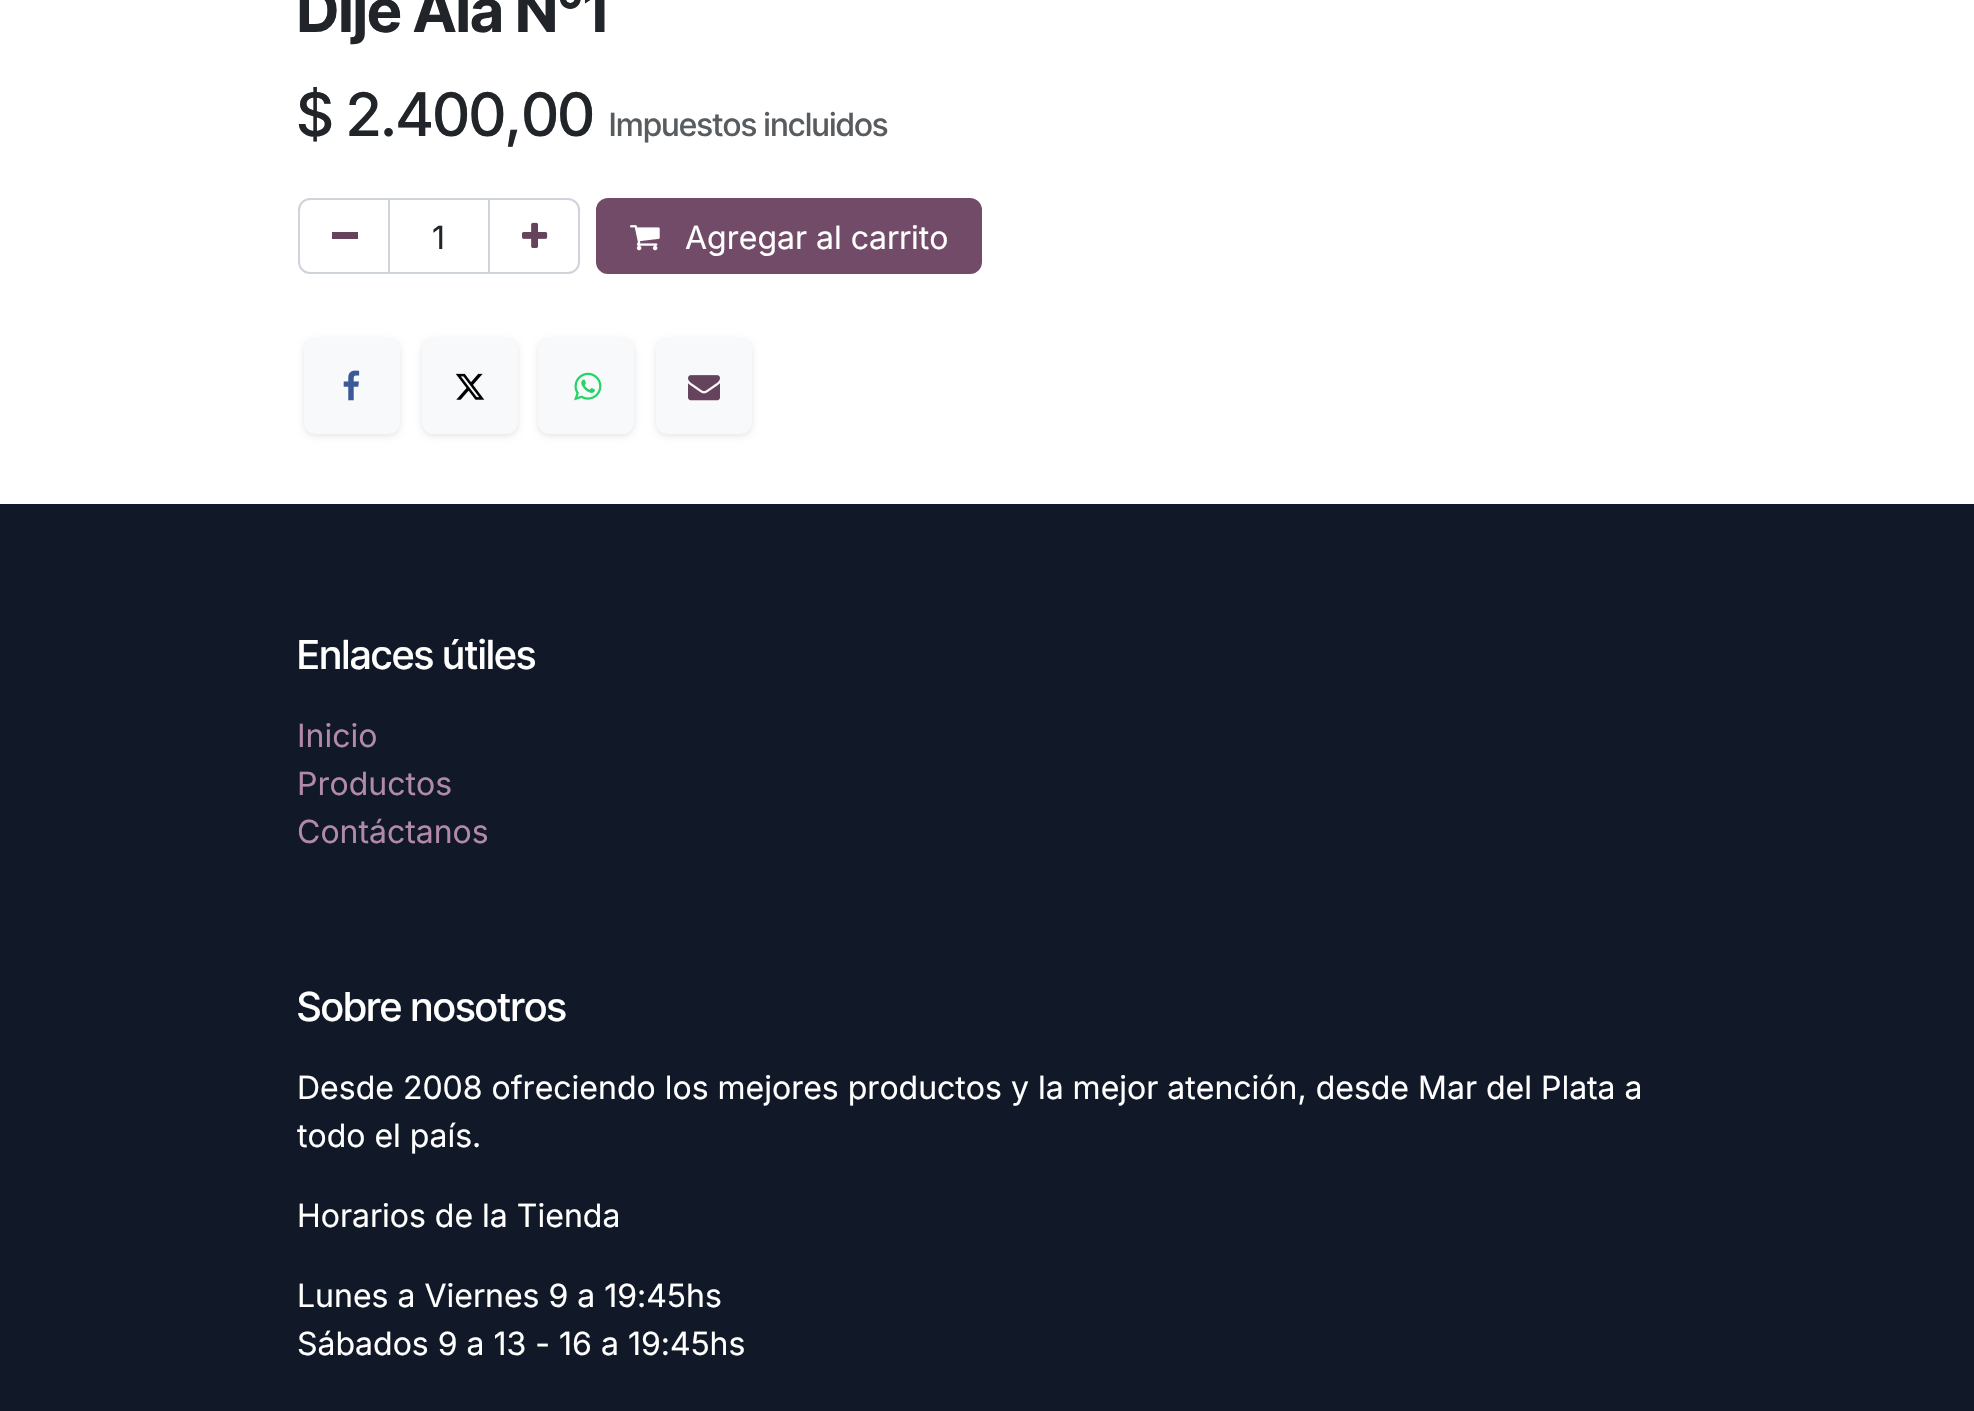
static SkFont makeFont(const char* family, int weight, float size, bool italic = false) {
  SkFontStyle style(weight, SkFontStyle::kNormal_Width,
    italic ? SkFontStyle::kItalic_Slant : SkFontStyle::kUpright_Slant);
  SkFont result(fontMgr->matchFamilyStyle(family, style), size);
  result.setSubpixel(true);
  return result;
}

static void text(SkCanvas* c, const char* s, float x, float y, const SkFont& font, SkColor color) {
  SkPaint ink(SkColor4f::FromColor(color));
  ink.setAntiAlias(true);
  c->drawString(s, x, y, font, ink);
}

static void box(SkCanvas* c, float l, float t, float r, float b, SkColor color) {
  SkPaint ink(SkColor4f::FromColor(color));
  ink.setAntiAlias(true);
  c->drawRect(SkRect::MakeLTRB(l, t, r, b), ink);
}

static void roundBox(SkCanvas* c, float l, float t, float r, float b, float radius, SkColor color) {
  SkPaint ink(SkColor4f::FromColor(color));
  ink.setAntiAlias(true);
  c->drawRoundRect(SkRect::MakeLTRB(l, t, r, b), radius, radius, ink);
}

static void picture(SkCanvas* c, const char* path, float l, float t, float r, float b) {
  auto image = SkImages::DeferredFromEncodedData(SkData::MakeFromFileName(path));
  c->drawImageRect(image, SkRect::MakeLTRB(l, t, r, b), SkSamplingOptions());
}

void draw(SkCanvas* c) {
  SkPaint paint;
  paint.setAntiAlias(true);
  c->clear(0xffffffff);
  SkFont face1 = makeFont("Inter Tight", 700, 60);
  text(c, "Dije Ala N°1", 297, 32, face1, 0xff212529);
  SkFont face2 = makeFont("Inter Tight", 500, 60);
  text(c, "$ 2.400,00", 297, 136, face2, 0xff212529);
  SkFont face3 = makeFont("Inter Tight", 500, 32);
  text(c, "Impuestos incluidos", 609, 136, face3, 0xff595c5f);
  paint.setStyle(SkPaint::kStroke_Style);
  paint.setStrokeWidth(2);
  paint.setColor(0xffced4da);
  c->drawRect(SkRect::MakeLTRB(389, 199, 489, 273), paint);
  c->drawPath(SkPathBuilder().moveTo(310, 199).lineTo(389, 199).lineTo(389, 273).lineTo(310, 273).cubicTo(304, 273, 299, 268, 299, 262).lineTo(299, 210).cubicTo(299, 204, 304, 199, 310, 199).close().detach(), paint);
  box(c, 332, 232, 358, 239, 0xff65435c);
  SkFont face4 = makeFont("Inter", 400, 32);
  text(c, "1", 432, 249, face4, 0xff212529);
  c->drawPath(SkPathBuilder().moveTo(489, 199).lineTo(568, 199).cubicTo(574, 199, 579, 204, 579, 210).lineTo(579, 262).cubicTo(579, 268, 574, 273, 568, 273).lineTo(489, 273).close().detach(), paint);
  picture(c, "img_01.png", 522, 222, 548, 248);
  paint.setStyle(SkPaint::kFill_Style);
  paint.setColor(0xff714b67);
  c->drawRoundRect(SkRect::MakeLTRB(597, 199, 981, 273), 11, 11, paint);
  paint.setStyle(SkPaint::kStroke_Style);
  c->drawRoundRect(SkRect::MakeLTRB(597, 199, 981, 273), 11, 11, paint);
  picture(c, "img_02.png", 630, 225, 660, 251);
  text(c, "Agregar al carrito", 685, 249, face4, 0xffffffff);
  paint.setStyle(SkPaint::kFill_Style);
  paint.setColor(0x1a000000);
  paint.setMaskFilter(SkMaskFilter::MakeBlur(kNormal_SkBlurStyle, 3));
  c->drawRoundRect(SkRect::MakeLTRB(304, 340, 400, 436), 12, 12, paint);
  paint.setMaskFilter(nullptr);
  roundBox(c, 304, 338, 400, 434, 12, 0xfff8f9fa);
  picture(c, "img_03.png", 343, 370, 360, 401);
  paint.setMaskFilter(SkMaskFilter::MakeBlur(kNormal_SkBlurStyle, 3));
  c->drawRoundRect(SkRect::MakeLTRB(422, 340, 518, 436), 12, 12, paint);
  paint.setMaskFilter(nullptr);
  roundBox(c, 422, 338, 518, 434, 12, 0xfff8f9fa);
  picture(c, "img_04.png", 455, 373, 485, 400);
  paint.setMaskFilter(SkMaskFilter::MakeBlur(kNormal_SkBlurStyle, 3));
  c->drawRoundRect(SkRect::MakeLTRB(538, 340, 634, 436), 12, 12, paint);
  paint.setMaskFilter(nullptr);
  roundBox(c, 538, 338, 634, 434, 12, 0xfff8f9fa);
  picture(c, "img_05.png", 574, 372, 602, 401);
  paint.setMaskFilter(SkMaskFilter::MakeBlur(kNormal_SkBlurStyle, 3));
  c->drawRoundRect(SkRect::MakeLTRB(656, 340, 752, 436), 12, 12, paint);
  paint.setMaskFilter(nullptr);
  roundBox(c, 656, 338, 752, 434, 12, 0xfff8f9fa);
  picture(c, "img_06.png", 688, 375, 720, 401);
  box(c, 0, 504, 1974, 1411, 0xff111827);
  SkFont face5 = makeFont("Inter Tight", 500, 40);
  text(c, "Enlaces útiles", 297, 669, face5, 0xffffffff);
  text(c, "Inicio", 297, 747, face4, 0xffb18aa7);
  text(c, "Productos", 297, 795, face4, 0xffb18aa7);
  text(c, "Contáctanos", 297, 843, face4, 0xffb18aa7);
  text(c, "Sobre nosotros", 297, 1021, face5, 0xffffffff);
  text(c, "Desde 2008 ofreciendo los mejores productos y la mejor atención, desde Mar del Plata a", 297, 1099, face4, 0xffffffff);
  text(c, "todo el país.", 297, 1147, face4, 0xffffffff);
  text(c, "Horarios de la Tienda", 297, 1227, face4, 0xffffffff);
  text(c, "Lunes a Viernes 9 a 19:45hs", 297, 1307, face4, 0xffffffff);
  text(c, "Sábados 9 a 13 - 16 a 19:45hs", 297, 1355, face4, 0xffffffff);
}
